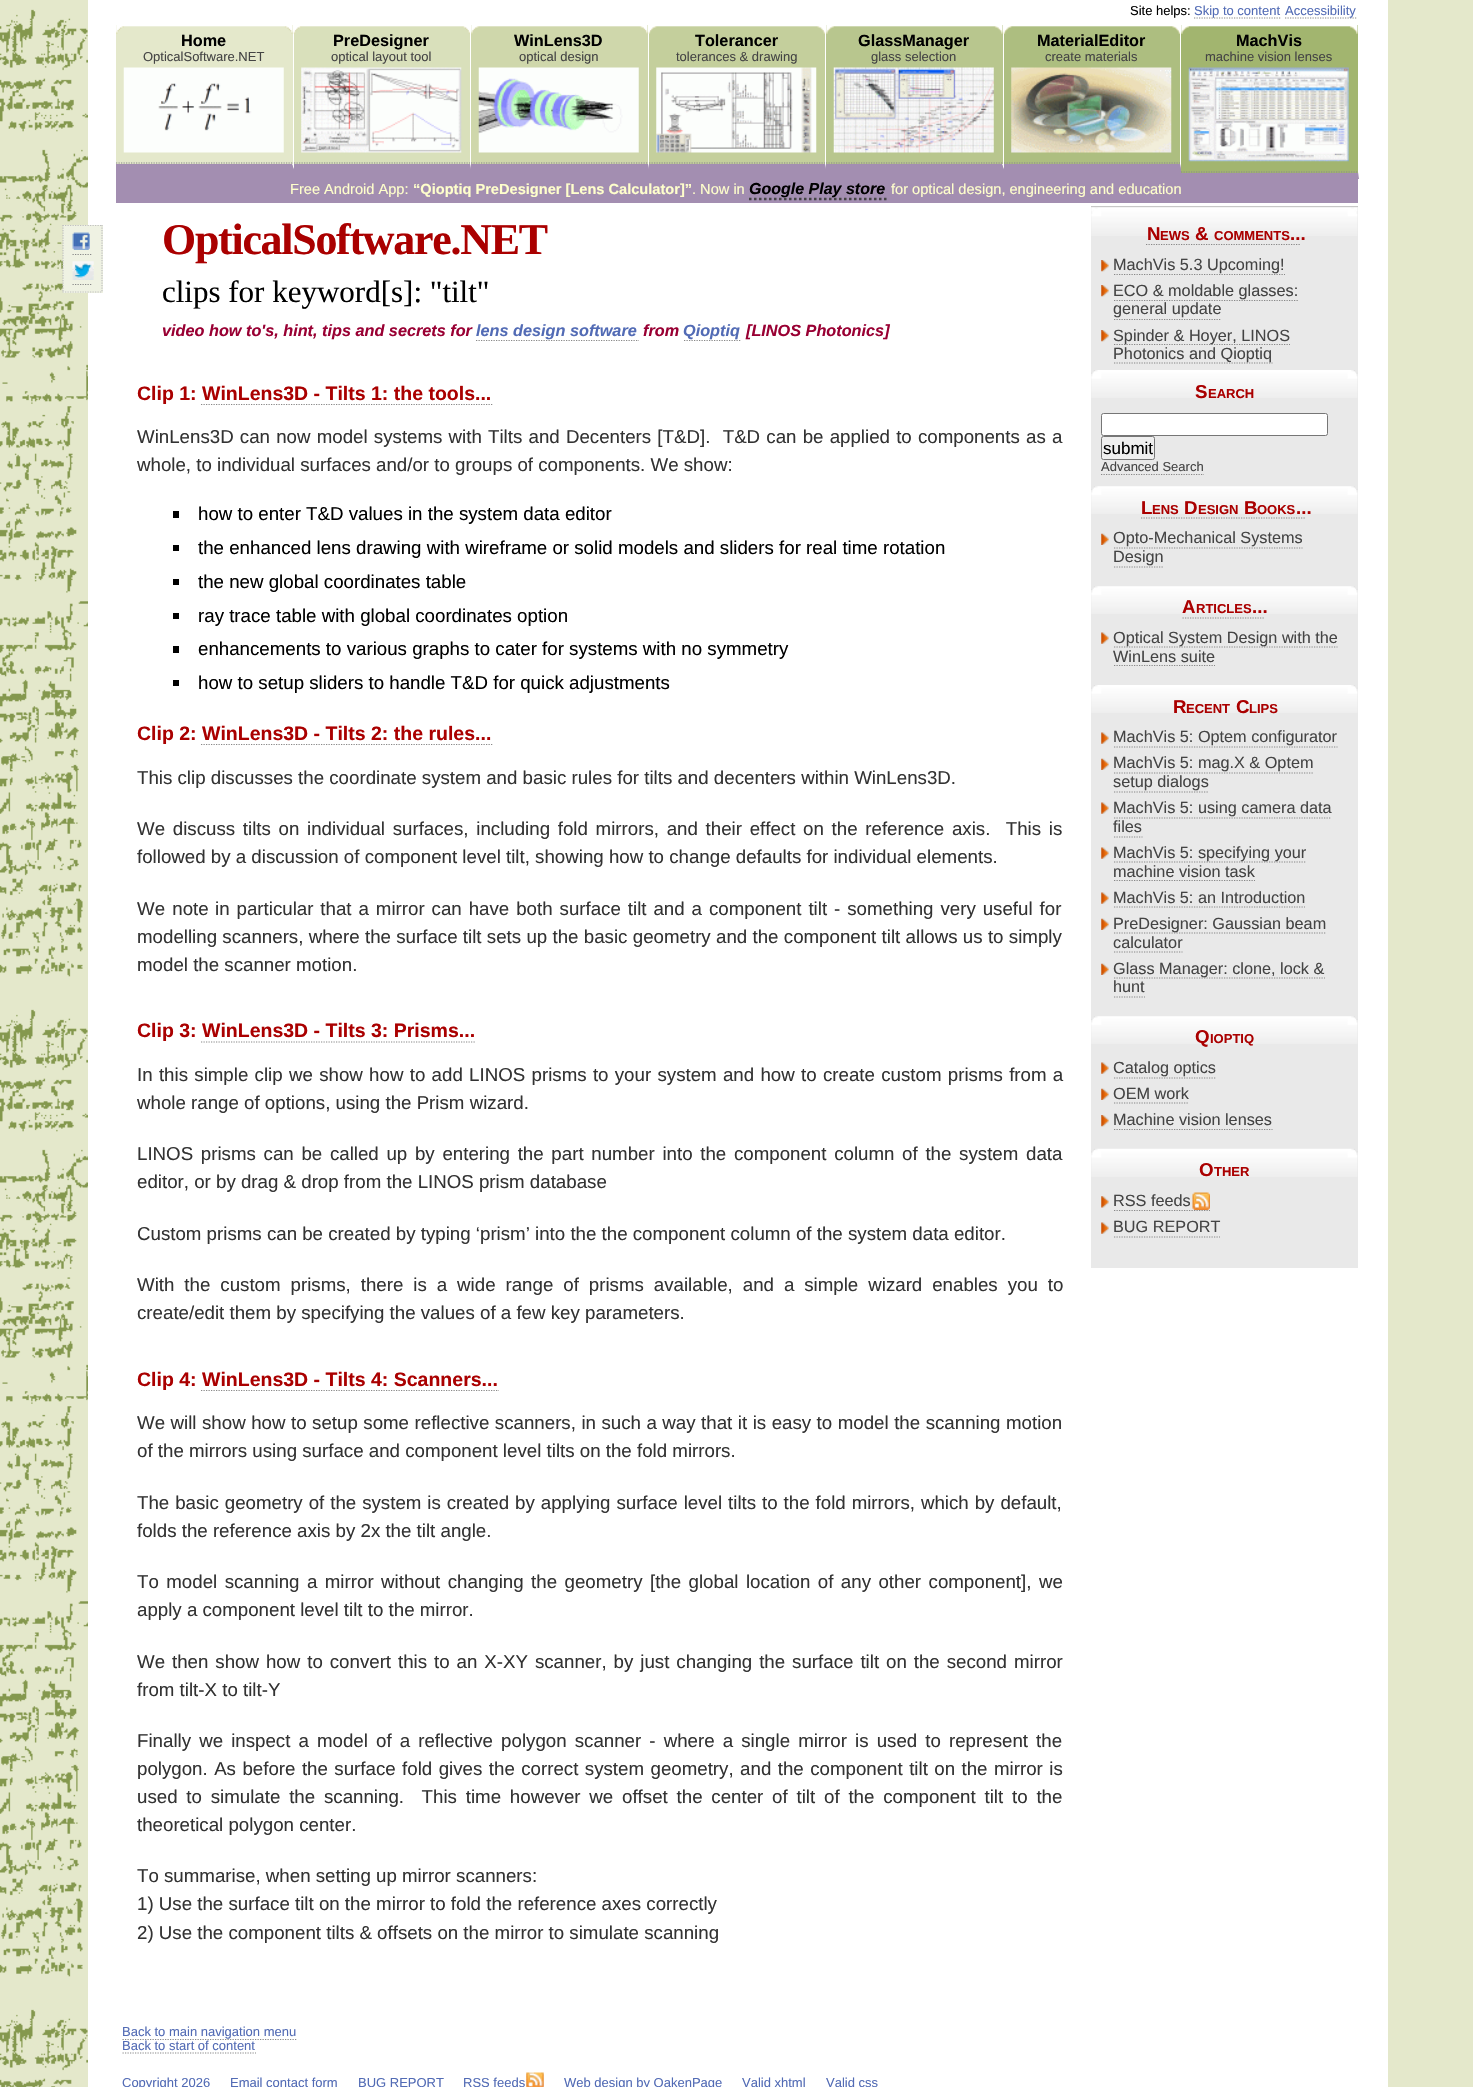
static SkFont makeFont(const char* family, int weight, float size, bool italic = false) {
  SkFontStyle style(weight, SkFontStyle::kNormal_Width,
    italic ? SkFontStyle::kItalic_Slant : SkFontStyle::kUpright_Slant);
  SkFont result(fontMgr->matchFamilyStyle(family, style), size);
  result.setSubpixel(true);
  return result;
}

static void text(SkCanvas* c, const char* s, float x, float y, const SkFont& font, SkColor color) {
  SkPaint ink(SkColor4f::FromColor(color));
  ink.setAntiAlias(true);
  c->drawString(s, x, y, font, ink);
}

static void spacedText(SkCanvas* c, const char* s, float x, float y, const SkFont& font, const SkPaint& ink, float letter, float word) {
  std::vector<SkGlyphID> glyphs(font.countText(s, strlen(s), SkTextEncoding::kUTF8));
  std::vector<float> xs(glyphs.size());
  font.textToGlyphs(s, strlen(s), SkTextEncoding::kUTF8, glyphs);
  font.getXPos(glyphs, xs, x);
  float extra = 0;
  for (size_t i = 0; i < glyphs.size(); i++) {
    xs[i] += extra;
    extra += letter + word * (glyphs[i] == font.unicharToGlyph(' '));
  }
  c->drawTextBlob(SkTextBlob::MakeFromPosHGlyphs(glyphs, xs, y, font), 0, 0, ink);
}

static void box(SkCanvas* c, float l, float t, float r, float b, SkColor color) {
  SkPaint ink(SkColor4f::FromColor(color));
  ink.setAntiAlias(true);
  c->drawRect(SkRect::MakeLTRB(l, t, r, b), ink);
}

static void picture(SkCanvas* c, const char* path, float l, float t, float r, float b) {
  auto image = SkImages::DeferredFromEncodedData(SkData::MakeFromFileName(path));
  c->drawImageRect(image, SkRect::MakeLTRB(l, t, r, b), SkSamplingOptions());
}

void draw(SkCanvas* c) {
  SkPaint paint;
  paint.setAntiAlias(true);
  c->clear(0xffe4e8cb);
  picture(c, "img_01.png", 0, 9, 88, 2087);
  box(c, 88, 0, 1388, 2087, 0xffffffff);
  SkFont face1 = makeFont("Liberation Sans", 400, 13);
  text(c, "Site helps:", 1130, 15, face1, 0xff000000);
  paint.setStyle(SkPaint::kStroke_Style);
  paint.setStrokeWidth(1.2f);
  paint.setColor(0xff888888);
  paint.setPathEffect(SkDashPathEffect::Make({{1.25f, 1.25f}}, 0));
  c->drawPath(SkPathBuilder().moveTo(1194, 18).lineTo(1281, 18).detach(), paint);
  paint.setPathEffect(nullptr);
  text(c, "Skip to content", 1194, 15, face1, 0xff526bb5);
  paint.setPathEffect(SkDashPathEffect::Make({{1.25f, 1.25f}}, 0));
  c->drawPath(SkPathBuilder().moveTo(1285, 18).lineTo(1357.5f, 18).detach(), paint);
  paint.setPathEffect(nullptr);
  text(c, "Accessibility", 1285, 15, face1, 0xff526bb5);
  box(c, 116, 164, 1358, 203, 0xffa38eb1);
  paint.setStyle(SkPaint::kFill_Style);
  paint.setColor(0xffffffff);
  c->drawPath(SkPathBuilder().moveTo(294, 25).lineTo(294, 170).lineTo(292, 164).lineTo(292, 25).close().detach(), paint);
  paint.setColor(0xffa38eb1);
  c->drawPath(SkPathBuilder().moveTo(294, 170).lineTo(116, 170).lineTo(116, 164).lineTo(292, 164).close().detach(), paint);
  box(c, 116, 25, 293, 164, 0xffe4e8cb);
  picture(c, "img_02.png", 116, 25, 293, 34);
  paint.setStyle(SkPaint::kStroke_Style);
  paint.setColor(0xff888888);
  paint.setPathEffect(SkDashPathEffect::Make({{1.25f, 1.25f}}, 0));
  c->drawPath(SkPathBuilder().moveTo(116, 163).lineTo(292.5f, 163).detach(), paint);
  paint.setPathEffect(nullptr);
  SkFont face2 = makeFont("Liberation Sans", 700, 16.25f);
  text(c, "Home", 181, 46, face2, 0xff000000);
  text(c, "OpticalSoftware.NET", 143, 61, face1, 0xff444444);
  picture(c, "img_03.png", 123, 67, 284, 153);
  paint.setStyle(SkPaint::kFill_Style);
  paint.setColor(0xffffffff);
  c->drawPath(SkPathBuilder().moveTo(471, 25).lineTo(471, 170).lineTo(470, 164).lineTo(470, 25).close().detach(), paint);
  paint.setColor(0xffa38eb1);
  c->drawPath(SkPathBuilder().moveTo(471, 170).lineTo(294, 170).lineTo(294, 164).lineTo(470, 164).close().detach(), paint);
  box(c, 294, 26, 470, 164, 0xffd9e0bb);
  picture(c, "img_04.png", 293, 25, 470, 34);
  paint.setStyle(SkPaint::kStroke_Style);
  paint.setColor(0xff888888);
  paint.setPathEffect(SkDashPathEffect::Make({{1.25f, 1.25f}}, 0));
  c->drawPath(SkPathBuilder().moveTo(294, 163).lineTo(470, 163).detach(), paint);
  paint.setPathEffect(nullptr);
  text(c, "PreDesigner", 333, 46, face2, 0xff000000);
  text(c, "optical layout tool", 331, 61, face1, 0xff444444);
  picture(c, "img_05.png", 301, 67, 462, 153);
  paint.setStyle(SkPaint::kFill_Style);
  paint.setColor(0xffffffff);
  c->drawPath(SkPathBuilder().moveTo(649, 25).lineTo(649, 170).lineTo(648, 164).lineTo(648, 25).close().detach(), paint);
  paint.setColor(0xffa38eb1);
  c->drawPath(SkPathBuilder().moveTo(649, 170).lineTo(471, 170).lineTo(471, 164).lineTo(648, 164).close().detach(), paint);
  box(c, 471, 25, 648, 164, 0xffcfd7ab);
  picture(c, "img_06.png", 471, 25, 648, 34);
  paint.setStyle(SkPaint::kStroke_Style);
  paint.setColor(0xff888888);
  paint.setPathEffect(SkDashPathEffect::Make({{1.25f, 1.25f}}, 0));
  c->drawPath(SkPathBuilder().moveTo(471, 163).lineTo(647.5f, 163).detach(), paint);
  paint.setPathEffect(nullptr);
  text(c, "WinLens3D", 514, 46, face2, 0xff000000);
  text(c, "optical design", 519, 61, face1, 0xff444444);
  picture(c, "img_07.png", 478, 67, 639, 153);
  paint.setStyle(SkPaint::kFill_Style);
  paint.setColor(0xffffffff);
  c->drawPath(SkPathBuilder().moveTo(826, 25).lineTo(826, 170).lineTo(825, 164).lineTo(825, 25).close().detach(), paint);
  paint.setColor(0xffa38eb1);
  c->drawPath(SkPathBuilder().moveTo(826, 170).lineTo(649, 170).lineTo(649, 164).lineTo(825, 164).close().detach(), paint);
  box(c, 649, 26, 825, 164, 0xffc4cf9c);
  picture(c, "img_08.png", 648, 25, 825, 34);
  paint.setStyle(SkPaint::kStroke_Style);
  paint.setColor(0xff888888);
  paint.setPathEffect(SkDashPathEffect::Make({{1.25f, 1.25f}}, 0));
  c->drawPath(SkPathBuilder().moveTo(649, 163).lineTo(825, 163).detach(), paint);
  paint.setPathEffect(nullptr);
  text(c, "Tolerancer", 695, 46, face2, 0xff000000);
  text(c, "tolerances & drawing", 676, 61, face1, 0xff444444);
  picture(c, "img_09.png", 656, 67, 817, 153);
  paint.setStyle(SkPaint::kFill_Style);
  paint.setColor(0xffffffff);
  c->drawPath(SkPathBuilder().moveTo(1004, 25).lineTo(1004, 170).lineTo(1002, 164).lineTo(1002, 25).close().detach(), paint);
  paint.setColor(0xffa38eb1);
  c->drawPath(SkPathBuilder().moveTo(1004, 170).lineTo(826, 170).lineTo(826, 164).lineTo(1002, 164).close().detach(), paint);
  box(c, 826, 25, 1003, 164, 0xffb8c68e);
  picture(c, "img_10.png", 826, 25, 1003, 34);
  paint.setStyle(SkPaint::kStroke_Style);
  paint.setColor(0xff888888);
  paint.setPathEffect(SkDashPathEffect::Make({{1.25f, 1.25f}}, 0));
  c->drawPath(SkPathBuilder().moveTo(826, 163).lineTo(1002.5f, 163).detach(), paint);
  paint.setPathEffect(nullptr);
  text(c, "GlassManager", 858, 46, face2, 0xff000000);
  text(c, "glass selection", 871, 61, face1, 0xff444444);
  picture(c, "img_11.png", 833, 67, 994, 153);
  paint.setStyle(SkPaint::kFill_Style);
  paint.setColor(0xffffffff);
  c->drawPath(SkPathBuilder().moveTo(1181, 25).lineTo(1181, 170).lineTo(1180, 164).lineTo(1180, 25).close().detach(), paint);
  paint.setColor(0xffa38eb1);
  c->drawPath(SkPathBuilder().moveTo(1181, 170).lineTo(1004, 170).lineTo(1004, 164).lineTo(1180, 164).close().detach(), paint);
  box(c, 1004, 26, 1180, 164, 0xffadbe80);
  picture(c, "img_12.png", 1003, 25, 1180, 34);
  paint.setStyle(SkPaint::kStroke_Style);
  paint.setColor(0xff888888);
  paint.setPathEffect(SkDashPathEffect::Make({{1.25f, 1.25f}}, 0));
  c->drawPath(SkPathBuilder().moveTo(1004, 163).lineTo(1180, 163).detach(), paint);
  paint.setPathEffect(nullptr);
  text(c, "MaterialEditor", 1037, 46, face2, 0xff000000);
  text(c, "create materials", 1045, 61, face1, 0xff444444);
  picture(c, "img_13.png", 1011, 67, 1172, 153);
  paint.setStyle(SkPaint::kFill_Style);
  paint.setColor(0xffa38eb1);
  c->drawPath(SkPathBuilder().moveTo(1359, 179).lineTo(1181, 179).lineTo(1181, 172).lineTo(1358, 172).close().detach(), paint);
  box(c, 1181, 25, 1358, 173, 0xffa2b56f);
  picture(c, "img_14.png", 1181, 25, 1358, 34);
  paint.setStyle(SkPaint::kStroke_Style);
  paint.setColor(0xff888888);
  paint.setPathEffect(SkDashPathEffect::Make({{1.25f, 1.25f}}, 0));
  c->drawPath(SkPathBuilder().moveTo(1181, 172).lineTo(1357.5f, 172).detach(), paint);
  paint.setPathEffect(nullptr);
  text(c, "MachVis", 1236, 46, face2, 0xff000000);
  text(c, "machine vision lenses", 1205, 61, face1, 0xff444444);
  picture(c, "img_15.png", 1188, 67, 1349, 162);
  SkFont face3 = makeFont("Liberation Sans", 400, 14.6f);
  text(c, "Free Android App:", 290, 194, face3, 0xffffffcc);
  SkFont face4 = makeFont("Liberation Sans", 700, 14.6f);
  text(c, "“Qioptiq PreDesigner [Lens Calculator]”", 413, 194, face4, 0xffffffcc);
  text(c, ". Now in", 692, 194, face3, 0xffffffcc);
  paint.setStrokeWidth(2.5f);
  paint.setColor(0xff444444);
  paint.setPathEffect(SkDashPathEffect::Make({{2.5f, 2.5f}}, 0));
  c->drawPath(SkPathBuilder().moveTo(749, 199).lineTo(887.5f, 199).detach(), paint);
  paint.setPathEffect(nullptr);
  SkFont face5 = makeFont("Liberation Sans", 700, 16, true);
  text(c, "Google Play store", 749, 194, face5, 0xff000000);
  text(c, "for optical design, engineering and education", 891, 194, face3, 0xffffffcc);
  box(c, 63, 225, 103, 293, 0xffeff2e3);
  paint.setStrokeWidth(1.2f);
  paint.setColor(0xffc0c0c0);
  paint.setPathEffect(SkDashPathEffect::Make({{1.25f, 1.25f}}, 0));
  c->drawPath(SkPathBuilder().moveTo(62.5f, 225.5f).lineTo(102.5f, 225.5f).detach(), paint);
  paint.setPathEffect(nullptr);
  paint.setPathEffect(SkDashPathEffect::Make({{1.25f, 1.25f}}, 0));
  c->drawPath(SkPathBuilder().moveTo(102, 225).lineTo(102, 292.5f).detach(), paint);
  paint.setPathEffect(nullptr);
  paint.setPathEffect(SkDashPathEffect::Make({{1.25f, 1.25f}}, 0));
  c->drawPath(SkPathBuilder().moveTo(62.5f, 292).lineTo(102.5f, 292).detach(), paint);
  paint.setPathEffect(nullptr);
  paint.setPathEffect(SkDashPathEffect::Make({{1.25f, 1.25f}}, 0));
  c->drawPath(SkPathBuilder().moveTo(63, 225).lineTo(63, 292.5f).detach(), paint);
  paint.setPathEffect(nullptr);
  paint.setColor(0xff888888);
  paint.setPathEffect(SkDashPathEffect::Make({{1.25f, 1.25f}}, 0));
  c->drawPath(SkPathBuilder().moveTo(72.5f, 254.5f).lineTo(92.5f, 254.5f).moveTo(72.5f, 284.5f).lineTo(92.5f, 284.5f).detach(), paint);
  paint.setPathEffect(nullptr);
  picture(c, "img_16.png", 72, 232, 90, 250);
  picture(c, "img_17.png", 72, 261, 94, 280);
  SkFont face6 = makeFont("Liberation Serif", 700, 43.9f);
  paint.setStyle(SkPaint::kFill_Style);
  paint.setColor(0xffaa0000);
  spacedText(c, "OpticalSoftware.NET", 162, 254, face6, paint, -1.25f, 0);
  SkFont face7 = makeFont("Liberation Serif", 400, 31);
  text(c, "clips for keyword[s]: \"tilt\"", 162, 302, face7, 0xff000000);
  SkFont face8 = makeFont("Liberation Sans", 700, 16.25f, true);
  text(c, "video how to's, hint, tips and secrets for", 162, 336, face8, 0xff990033);
  paint.setStyle(SkPaint::kStroke_Style);
  paint.setColor(0xff888888);
  paint.setPathEffect(SkDashPathEffect::Make({{1.25f, 1.25f}}, 0));
  c->drawPath(SkPathBuilder().moveTo(476, 340.5f).lineTo(639, 340.5f).detach(), paint);
  paint.setPathEffect(nullptr);
  text(c, "lens design software", 476, 336, face8, 0xff526bb5);
  text(c, "from", 643, 336, face8, 0xff990033);
  paint.setPathEffect(SkDashPathEffect::Make({{1.25f, 1.25f}}, 0));
  c->drawPath(SkPathBuilder().moveTo(684, 340.5f).lineTo(741, 340.5f).detach(), paint);
  paint.setPathEffect(nullptr);
  text(c, "Qioptiq", 683, 336, face8, 0xff526bb5);
  text(c, "[LINOS Photonics]", 746, 336, face8, 0xff990033);
  box(c, 1091, 207, 1358, 1268, 0xffe9e9e9);
  picture(c, "img_18.png", 1091, 207, 1358, 236);
  box(c, 1091, 206, 1358, 207, 0xffc7c7c7);
  SkFont face9 = makeFont("Liberation Sans", 700, 18.7f);
  text(c, "N", 1147, 240, face9, 0xffaa0000);
  SkFont face10 = makeFont("Liberation Sans", 700, 13);
  text(c, "EWS", 1160, 240, face10, 0xffaa0000);
  text(c, "&", 1195, 240, face9, 0xffaa0000);
  text(c, "COMMENTS", 1214, 240, face10, 0xffaa0000);
  text(c, "...", 1290, 240, face9, 0xffaa0000);
  paint.setPathEffect(SkDashPathEffect::Make({{1.25f, 1.25f}}, 0));
  c->drawPath(SkPathBuilder().moveTo(1146, 244.5f).lineTo(1301, 244.5f).detach(), paint);
  paint.setPathEffect(nullptr);
  picture(c, "img_19.png", 1101, 260, 1109, 272);
  paint.setPathEffect(SkDashPathEffect::Make({{1.25f, 1.25f}}, 0));
  c->drawPath(SkPathBuilder().moveTo(1114, 274.5f).lineTo(1285, 274.5f).detach(), paint);
  paint.setPathEffect(nullptr);
  SkFont face11 = makeFont("Liberation Sans", 400, 16.25f);
  text(c, "MachVis 5.3 Upcoming!", 1113, 270, face11, 0xff444444);
  picture(c, "img_19.png", 1101, 285, 1109, 297);
  paint.setPathEffect(SkDashPathEffect::Make({{1.25f, 1.25f}}, 0));
  c->drawPath(SkPathBuilder().moveTo(1114, 300.5f).lineTo(1299, 300.5f).detach(), paint);
  paint.setPathEffect(nullptr);
  text(c, "ECO & moldable glasses:", 1113, 296, face11, 0xff444444);
  text(c, "general update", 1113, 314, face11, 0xff444444);
  paint.setPathEffect(SkDashPathEffect::Make({{1.25f, 1.25f}}, 0));
  c->drawPath(SkPathBuilder().moveTo(1114, 319.5f).lineTo(1221, 319.5f).detach(), paint);
  paint.setPathEffect(nullptr);
  picture(c, "img_19.png", 1101, 330, 1109, 342);
  paint.setPathEffect(SkDashPathEffect::Make({{1.25f, 1.25f}}, 0));
  c->drawPath(SkPathBuilder().moveTo(1114, 344.5f).lineTo(1290, 344.5f).detach(), paint);
  paint.setPathEffect(nullptr);
  text(c, "Spinder & Hoyer, LINOS", 1113, 341, face11, 0xff444444);
  paint.setPathEffect(SkDashPathEffect::Make({{1.25f, 1.25f}}, 0));
  c->drawPath(SkPathBuilder().moveTo(1114, 363).lineTo(1272.5f, 363).detach(), paint);
  paint.setPathEffect(nullptr);
  text(c, "Photonics and Qioptiq", 1113, 359, face11, 0xff444444);
  picture(c, "img_20.png", 1091, 370, 1358, 398);
  text(c, "S", 1195, 398, face9, 0xffaa0000);
  text(c, "EARCH", 1208, 398, face10, 0xffaa0000);
  paint.setStyle(SkPaint::kFill_Style);
  paint.setColor(0xffffffff);
  c->drawRoundRect(SkRect::MakeLTRB(1101.5f, 413.5f, 1327.5f, 435.5f), 2, 2, paint);
  paint.setStyle(SkPaint::kStroke_Style);
  paint.setStrokeWidth(1);
  paint.setColor(0xff767676);
  c->drawRoundRect(SkRect::MakeLTRB(1101.5f, 413.5f, 1327.5f, 435.5f), 2, 2, paint);
  paint.setStyle(SkPaint::kFill_Style);
  paint.setColor(0xffefefef);
  c->drawRoundRect(SkRect::MakeLTRB(1101.5f, 436.5f, 1154.5f, 459.5f), 2, 2, paint);
  paint.setStyle(SkPaint::kStroke_Style);
  paint.setColor(0xff767676);
  c->drawRoundRect(SkRect::MakeLTRB(1101.5f, 436.5f, 1154.5f, 459.5f), 2, 2, paint);
  SkFont face12 = makeFont("Liberation Sans", 400, 17);
  text(c, "submit", 1103, 454, face12, 0xff000000);
  text(c, "Advanced Search", 1101, 471, face1, 0xff444444);
  paint.setStrokeWidth(1.2f);
  paint.setColor(0xff888888);
  paint.setPathEffect(SkDashPathEffect::Make({{1.25f, 1.25f}}, 0));
  c->drawPath(SkPathBuilder().moveTo(1101, 474.5f).lineTo(1204, 474.5f).detach(), paint);
  paint.setPathEffect(nullptr);
  picture(c, "img_21.png", 1091, 486, 1358, 514);
  text(c, "L", 1141, 514, face9, 0xffaa0000);
  text(c, "ENS", 1152, 514, face10, 0xffaa0000);
  text(c, "D", 1184, 514, face9, 0xffaa0000);
  text(c, "ESIGN", 1198, 514, face10, 0xffaa0000);
  text(c, "B", 1244, 514, face9, 0xffaa0000);
  text(c, "OOKS", 1257, 514, face10, 0xffaa0000);
  text(c, "...", 1296, 514, face9, 0xffaa0000);
  paint.setPathEffect(SkDashPathEffect::Make({{1.25f, 1.25f}}, 0));
  c->drawPath(SkPathBuilder().moveTo(1141, 518).lineTo(1306, 518).detach(), paint);
  paint.setPathEffect(nullptr);
  picture(c, "img_22.png", 1101, 533, 1109, 545);
  text(c, "Opto-Mechanical Systems", 1113, 543, face11, 0xff444444);
  paint.setPathEffect(SkDashPathEffect::Make({{1.25f, 1.25f}}, 0));
  c->drawPath(SkPathBuilder().moveTo(1114, 548).lineTo(1302.5f, 548).detach(), paint);
  paint.setPathEffect(nullptr);
  text(c, "Design", 1113, 562, face11, 0xff444444);
  paint.setPathEffect(SkDashPathEffect::Make({{1.25f, 1.25f}}, 0));
  c->drawPath(SkPathBuilder().moveTo(1114, 567).lineTo(1164, 567).detach(), paint);
  paint.setPathEffect(nullptr);
  picture(c, "img_23.png", 1091, 586, 1358, 614);
  text(c, "A", 1182, 613, face9, 0xffaa0000);
  text(c, "RTICLES", 1196, 613, face10, 0xffaa0000);
  text(c, "...", 1252, 613, face9, 0xffaa0000);
  paint.setPathEffect(SkDashPathEffect::Make({{1.25f, 1.25f}}, 0));
  c->drawPath(SkPathBuilder().moveTo(1182.5f, 618).lineTo(1265, 618).detach(), paint);
  paint.setPathEffect(nullptr);
  picture(c, "img_24.png", 1101, 632, 1109, 644);
  paint.setPathEffect(SkDashPathEffect::Make({{1.25f, 1.25f}}, 0));
  c->drawPath(SkPathBuilder().moveTo(1114, 647).lineTo(1337.5f, 647).detach(), paint);
  paint.setPathEffect(nullptr);
  text(c, "Optical System Design with the", 1113, 643, face11, 0xff444444);
  text(c, "WinLens suite", 1113, 662, face11, 0xff444444);
  paint.setPathEffect(SkDashPathEffect::Make({{1.25f, 1.25f}}, 0));
  c->drawPath(SkPathBuilder().moveTo(1114, 665.5f).lineTo(1215, 665.5f).detach(), paint);
  paint.setPathEffect(nullptr);
  picture(c, "img_20.png", 1091, 685, 1358, 713);
  text(c, "R", 1173, 713, face9, 0xffaa0000);
  text(c, "ECENT", 1186, 713, face10, 0xffaa0000);
  text(c, "C", 1236, 713, face9, 0xffaa0000);
  text(c, "LIPS", 1249, 713, face10, 0xffaa0000);
  picture(c, "img_24.png", 1101, 732, 1109, 744);
  text(c, "MachVis 5: Optem configurator", 1113, 742, face11, 0xff444444);
  paint.setPathEffect(SkDashPathEffect::Make({{1.25f, 1.25f}}, 0));
  c->drawPath(SkPathBuilder().moveTo(1114, 747).lineTo(1337.5f, 747).detach(), paint);
  paint.setPathEffect(nullptr);
  picture(c, "img_22.png", 1101, 758, 1109, 770);
  text(c, "MachVis 5: mag.X & Optem", 1113, 768, face11, 0xff444444);
  paint.setPathEffect(SkDashPathEffect::Make({{1.25f, 1.25f}}, 0));
  c->drawPath(SkPathBuilder().moveTo(1114, 773).lineTo(1314, 773).detach(), paint);
  paint.setPathEffect(nullptr);
  text(c, "setup dialogs", 1113, 787, face11, 0xff444444);
  paint.setPathEffect(SkDashPathEffect::Make({{1.25f, 1.25f}}, 0));
  c->drawPath(SkPathBuilder().moveTo(1114, 792).lineTo(1209, 792).detach(), paint);
  paint.setPathEffect(nullptr);
  picture(c, "img_24.png", 1101, 802, 1109, 814);
  text(c, "MachVis 5: using camera data", 1113, 813, face11, 0xff444444);
  text(c, "files", 1113, 832, face11, 0xff444444);
  paint.setPathEffect(SkDashPathEffect::Make({{1.25f, 1.25f}}, 0));
  c->drawPath(SkPathBuilder().moveTo(1114, 818).lineTo(1331, 818).detach(), paint);
  paint.setPathEffect(nullptr);
  paint.setPathEffect(SkDashPathEffect::Make({{1.25f, 1.25f}}, 0));
  c->drawPath(SkPathBuilder().moveTo(1114, 837).lineTo(1142.5f, 837).detach(), paint);
  paint.setPathEffect(nullptr);
  picture(c, "img_24.png", 1101, 847, 1109, 859);
  paint.setPathEffect(SkDashPathEffect::Make({{1.25f, 1.25f}}, 0));
  c->drawPath(SkPathBuilder().moveTo(1114, 862).lineTo(1306, 862).detach(), paint);
  paint.setPathEffect(nullptr);
  text(c, "MachVis 5: specifying your", 1113, 858, face11, 0xff444444);
  text(c, "machine vision task", 1113, 877, face11, 0xff444444);
  paint.setPathEffect(SkDashPathEffect::Make({{1.25f, 1.25f}}, 0));
  c->drawPath(SkPathBuilder().moveTo(1114, 880.5f).lineTo(1255, 880.5f).detach(), paint);
  paint.setPathEffect(nullptr);
  picture(c, "img_24.png", 1101, 892, 1109, 904);
  text(c, "MachVis 5: an Introduction", 1113, 903, face11, 0xff444444);
  paint.setPathEffect(SkDashPathEffect::Make({{1.25f, 1.25f}}, 0));
  c->drawPath(SkPathBuilder().moveTo(1114, 907).lineTo(1305, 907).detach(), paint);
  paint.setPathEffect(nullptr);
  picture(c, "img_22.png", 1101, 918, 1109, 930);
  paint.setPathEffect(SkDashPathEffect::Make({{1.25f, 1.25f}}, 0));
  c->drawPath(SkPathBuilder().moveTo(1114, 933).lineTo(1326, 933).detach(), paint);
  paint.setPathEffect(nullptr);
  text(c, "PreDesigner: Gaussian beam", 1113, 929, face11, 0xff444444);
  text(c, "calculator", 1113, 948, face11, 0xff444444);
  paint.setPathEffect(SkDashPathEffect::Make({{1.25f, 1.25f}}, 0));
  c->drawPath(SkPathBuilder().moveTo(1114, 952).lineTo(1182.5f, 952).detach(), paint);
  paint.setPathEffect(nullptr);
  picture(c, "img_22.png", 1101, 963, 1109, 975);
  paint.setPathEffect(SkDashPathEffect::Make({{1.25f, 1.25f}}, 0));
  c->drawPath(SkPathBuilder().moveTo(1114, 978).lineTo(1325, 978).detach(), paint);
  paint.setPathEffect(nullptr);
  text(c, "Glass Manager: clone, lock &", 1113, 974, face11, 0xff444444);
  text(c, "hunt", 1113, 992, face11, 0xff444444);
  paint.setPathEffect(SkDashPathEffect::Make({{1.25f, 1.25f}}, 0));
  c->drawPath(SkPathBuilder().moveTo(1114, 997).lineTo(1145, 997).detach(), paint);
  paint.setPathEffect(nullptr);
  picture(c, "img_21.png", 1091, 1016, 1358, 1044);
  text(c, "Q", 1195, 1043, face9, 0xffaa0000);
  text(c, "IOPTIQ", 1210, 1043, face10, 0xffaa0000);
  picture(c, "img_24.png", 1101, 1062, 1109, 1074);
  text(c, "Catalog optics", 1113, 1073, face11, 0xff444444);
  paint.setPathEffect(SkDashPathEffect::Make({{1.25f, 1.25f}}, 0));
  c->drawPath(SkPathBuilder().moveTo(1114, 1078).lineTo(1216, 1078).detach(), paint);
  paint.setPathEffect(nullptr);
  picture(c, "img_22.png", 1101, 1088, 1109, 1100);
  text(c, "OEM work", 1113, 1099, face11, 0xff444444);
  paint.setPathEffect(SkDashPathEffect::Make({{1.25f, 1.25f}}, 0));
  c->drawPath(SkPathBuilder().moveTo(1114, 1103).lineTo(1189, 1103).detach(), paint);
  paint.setPathEffect(nullptr);
  picture(c, "img_19.png", 1101, 1115, 1109, 1127);
  text(c, "Machine vision lenses", 1113, 1125, face11, 0xff444444);
  paint.setPathEffect(SkDashPathEffect::Make({{1.25f, 1.25f}}, 0));
  c->drawPath(SkPathBuilder().moveTo(1114, 1129.5f).lineTo(1272.5f, 1129.5f).detach(), paint);
  paint.setPathEffect(nullptr);
  picture(c, "img_25.png", 1091, 1148, 1358, 1177);
  text(c, "O", 1199, 1176, face9, 0xffaa0000);
  text(c, "THER", 1214, 1176, face10, 0xffaa0000);
  picture(c, "img_26.png", 1101, 1196, 1109, 1208);
  text(c, "RSS feeds", 1113, 1206, face11, 0xff444444);
  picture(c, "img_27.png", 1192, 1192, 1210, 1210);
  paint.setPathEffect(SkDashPathEffect::Make({{1.25f, 1.25f}}, 0));
  c->drawPath(SkPathBuilder().moveTo(1114, 1210.5f).lineTo(1210, 1210.5f).detach(), paint);
  paint.setPathEffect(nullptr);
  picture(c, "img_24.png", 1101, 1222, 1109, 1234);
  text(c, "BUG REPORT", 1113, 1232, face11, 0xff444444);
  paint.setPathEffect(SkDashPathEffect::Make({{1.25f, 1.25f}}, 0));
  c->drawPath(SkPathBuilder().moveTo(1114, 1237).lineTo(1220, 1237).detach(), paint);
  paint.setPathEffect(nullptr);
  SkFont face13 = makeFont("Liberation Sans", 700, 19.5f);
  text(c, "Clip 1: WinLens3D - Tilts 1: the tools...", 137, 400, face13, 0xffaa0000);
  paint.setPathEffect(SkDashPathEffect::Make({{1.25f, 1.25f}}, 0));
  c->drawPath(SkPathBuilder().moveTo(201, 404.5f).lineTo(492.5f, 404.5f).detach(), paint);
  paint.setPathEffect(nullptr);
  SkFont face14 = makeFont("Liberation Sans", 400, 18.7f);
  paint.setStyle(SkPaint::kFill_Style);
  paint.setColor(0xff333333);
  spacedText(c, "WinLens3D can now model systems with Tilts and Decenters [T&D].  T&D can be applied to components as a", 137, 443, face14, paint, 0, 1);
  text(c, "whole, to individual surfaces and/or to groups of components. We show:", 137, 471, face14, 0xff333333);
  box(c, 173, 511, 179, 518, 0xff000000);
  text(c, "how to enter T&D values in the system data editor", 198, 520, face14, 0xff000000);
  box(c, 173, 545, 179, 551, 0xff000000);
  text(c, "the enhanced lens drawing with wireframe or solid models and sliders for real time rotation", 198, 554, face14, 0xff000000);
  box(c, 173, 579, 179, 585, 0xff000000);
  text(c, "the new global coordinates table", 198, 588, face14, 0xff000000);
  box(c, 173, 613, 179, 619, 0xff000000);
  text(c, "ray trace table with global coordinates option", 198, 622, face14, 0xff000000);
  box(c, 173, 646, 179, 653, 0xff000000);
  text(c, "enhancements to various graphs to cater for systems with no symmetry", 198, 655, face14, 0xff000000);
  box(c, 173, 680, 179, 686, 0xff000000);
  text(c, "how to setup sliders to handle T&D for quick adjustments", 198, 689, face14, 0xff000000);
  text(c, "Clip 2: WinLens3D - Tilts 2: the rules...", 137, 740, face13, 0xffaa0000);
  paint.setStyle(SkPaint::kStroke_Style);
  paint.setColor(0xff888888);
  paint.setPathEffect(SkDashPathEffect::Make({{1.25f, 1.25f}}, 0));
  c->drawPath(SkPathBuilder().moveTo(201, 744.5f).lineTo(492.5f, 744.5f).detach(), paint);
  paint.setPathEffect(nullptr);
  text(c, "This clip discusses the coordinate system and basic rules for tilts and decenters within WinLens3D.", 137, 784, face14, 0xff333333);
  paint.setStyle(SkPaint::kFill_Style);
  paint.setColor(0xff333333);
  spacedText(c, "We discuss tilts on individual surfaces, including fold mirrors, and their effect on the reference axis.  This is", 137, 835, face14, paint, 0, 2.5f);
  text(c, "followed by a discussion of component level tilt, showing how to change defaults for individual elements.", 137, 863, face14, 0xff333333);
  spacedText(c, "We note", 137, 915, face14, paint, 0, 2);
  spacedText(c, "in particular that a mirror can have both surface tilt and a component tilt - something very useful for", 215, 915, face14, paint, 0, 1.75f);
  spacedText(c, "modelling scanners, where the surface tilt sets up the basic geometry and the component tilt allows us to simply", 137, 943, face14, paint, 0, 0.1f);
  text(c, "model the scanner motion.", 137, 971, face14, 0xff333333);
  text(c, "Clip 3: WinLens3D - Tilts 3: Prisms...", 137, 1037, face13, 0xffaa0000);
  paint.setStyle(SkPaint::kStroke_Style);
  paint.setColor(0xff888888);
  paint.setPathEffect(SkDashPathEffect::Make({{1.25f, 1.25f}}, 0));
  c->drawPath(SkPathBuilder().moveTo(201, 1042).lineTo(476, 1042).detach(), paint);
  paint.setPathEffect(nullptr);
  paint.setStyle(SkPaint::kFill_Style);
  paint.setColor(0xff333333);
  spacedText(c, "In this simple clip we show how to add LINOS prisms to your system and how to create custom prisms from a", 137, 1081, face14, paint, 0, 1.1f);
  text(c, "whole range of options, using the Prism wizard.", 137, 1109, face14, 0xff333333);
  spacedText(c, "LINOS prisms can be called up by entering the part number into the component column of the system data", 137, 1160, face14, paint, 0, 2.5f);
  text(c, "editor, or by drag & drop from the LINOS prism database", 137, 1188, face14, 0xff333333);
  text(c, "Custom prisms can be created by typing ‘prism’ into the the component column of the system data editor.", 137, 1240, face14, 0xff333333);
  spacedText(c, "With the custom prisms, there is a wide range of prisms available, and a simple wizard enables you to", 137, 1291, face14, paint, 0, 4.75f);
  text(c, "create/edit them by specifying the values of a few key parameters.", 137, 1319, face14, 0xff333333);
  text(c, "Clip 4: WinLens3D - Tilts 4: Scanners...", 137, 1386, face13, 0xffaa0000);
  paint.setStyle(SkPaint::kStroke_Style);
  paint.setColor(0xff888888);
  paint.setPathEffect(SkDashPathEffect::Make({{1.25f, 1.25f}}, 0));
  c->drawPath(SkPathBuilder().moveTo(201, 1390.5f).lineTo(499, 1390.5f).detach(), paint);
  paint.setPathEffect(nullptr);
  paint.setStyle(SkPaint::kFill_Style);
  paint.setColor(0xff333333);
  spacedText(c, "We will show how to setup some reflective scanners, in such a way that it is easy to model the scanning motion", 137, 1429, face14, paint, 0, 0.3f);
  text(c, "of the mirrors using surface and component level tilts on the fold mirrors.", 137, 1457, face14, 0xff333333);
  spacedText(c, "The basic geometry of the system is created by applying surface level tilts to the fold mirrors, which by default,", 137, 1509, face14, paint, 0, 0.75f);
  text(c, "folds the reference axis by 2x the tilt angle.", 137, 1537, face14, 0xff333333);
  spacedText(c, "To model scanning a mirror without changing the geometry [the global location of any other component], we", 137, 1588, face14, paint, 0, 2.25f);
  text(c, "apply a component level tilt to the mirror.", 137, 1616, face14, 0xff333333);
  spacedText(c, "We then show how to convert this to an X-XY scanner, by just changing the surface tilt on the second mirror", 137, 1668, face14, paint, 0, 1.75f);
  text(c, "from tilt-X to tilt-Y", 137, 1696, face14, 0xff333333);
  spacedText(c, "Finally we inspect a model of a reflective polygon scanner - where a single mirror is used to represent the", 137, 1747, face14, paint, 0, 2.9f);
  spacedText(c, "polygon. As before the surface fold gives the correct system geometry, and the component tilt on the mirror is", 137, 1775, face14, paint, 0, 1.25f);
  spacedText(c, "used to simulate the scanning.  This time however we offset the center of tilt of the component tilt to the", 137, 1803, face14, paint, 0, 3.6f);
  text(c, "theoretical polygon center.", 137, 1831, face14, 0xff333333);
  text(c, "To summarise, when setting up mirror scanners:", 137, 1882, face14, 0xff333333);
  text(c, "1) Use the surface tilt on the mirror to fold the reference axes correctly", 137, 1910, face14, 0xff333333);
  text(c, "2) Use the component tilts & offsets on the mirror to simulate scanning", 137, 1939, face14, 0xff333333);
  paint.setStyle(SkPaint::kStroke_Style);
  paint.setColor(0xff888888);
  paint.setPathEffect(SkDashPathEffect::Make({{1.25f, 1.25f}}, 0));
  c->drawPath(SkPathBuilder().moveTo(122.5f, 2039.5f).lineTo(297.5f, 2039.5f).detach(), paint);
  paint.setPathEffect(nullptr);
  text(c, "Back to main navigation menu", 122, 2036, face1, 0xff526bb5);
  text(c, "Back to start of content", 122, 2050, face1, 0xff526bb5);
  paint.setPathEffect(SkDashPathEffect::Make({{1.25f, 1.25f}}, 0));
  c->drawPath(SkPathBuilder().moveTo(122.5f, 2053).lineTo(256, 2053).detach(), paint);
  paint.setPathEffect(nullptr);
  text(c, "Copyright 2026", 122, 2087, face1, 0xff526bb5);
  text(c, "Email contact form", 230, 2087, face1, 0xff526bb5);
  text(c, "BUG REPORT", 358, 2087, face1, 0xff526bb5);
  text(c, "RSS feeds", 463, 2087, face1, 0xff526bb5);
  picture(c, "img_28.png", 526, 2072, 544, 2087);
  text(c, "Web design by OakenPage", 564, 2087, face1, 0xff526bb5);
  text(c, "Valid xhtml", 742, 2087, face1, 0xff526bb5);
  text(c, "Valid css", 826, 2087, face1, 0xff526bb5);
}
